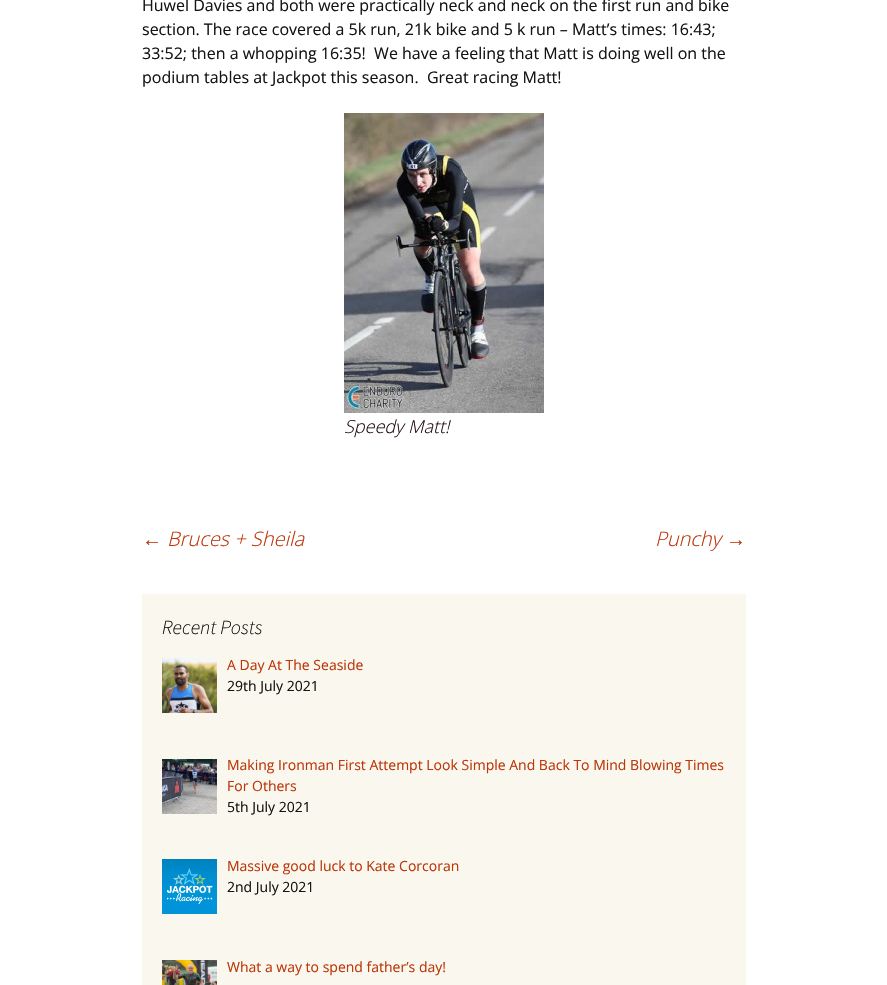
static SkFont makeFont(const char* family, int weight, float size, bool italic = false) {
  SkFontStyle style(weight, SkFontStyle::kNormal_Width,
    italic ? SkFontStyle::kItalic_Slant : SkFontStyle::kUpright_Slant);
  SkFont result(fontMgr->matchFamilyStyle(family, style), size);
  result.setSubpixel(true);
  return result;
}

static void text(SkCanvas* c, const char* s, float x, float y, const SkFont& font, SkColor color) {
  SkPaint ink(SkColor4f::FromColor(color));
  ink.setAntiAlias(true);
  c->drawString(s, x, y, font, ink);
}

static void box(SkCanvas* c, float l, float t, float r, float b, SkColor color) {
  SkPaint ink(SkColor4f::FromColor(color));
  ink.setAntiAlias(true);
  c->drawRect(SkRect::MakeLTRB(l, t, r, b), ink);
}

static void picture(SkCanvas* c, const char* path, float l, float t, float r, float b) {
  auto image = SkImages::DeferredFromEncodedData(SkData::MakeFromFileName(path));
  c->drawImageRect(image, SkRect::MakeLTRB(l, t, r, b), SkSamplingOptions());
}

void draw(SkCanvas* c) {
  SkPaint paint;
  paint.setAntiAlias(true);
  c->clear(0xffffffff);
  SkFont face1 = makeFont("Open Sans", 400, 16);
  text(c, "Huwel Davies and both were practically neck and neck on the first run and bike", 142, 11, face1, 0xff141412);
  text(c, "section. The race covered a 5k run, 21k bike and 5 k run – Matt’s times: 16:43;", 142, 35, face1, 0xff141412);
  text(c, "33:52; then a whopping 16:35!  We have a feeling that Matt is doing well on the", 142, 59, face1, 0xff141412);
  text(c, "podium tables at Jackpot this season.  Great racing Matt!", 142, 83, face1, 0xff141412);
  picture(c, "img_01.png", 344, 113, 544, 413);
  SkFont face2 = makeFont("Open Sans", 300, 18, true);
  text(c, "Speedy Matt!", 344, 433, face2, 0xff220e10);
  SkFont face3 = makeFont("Liberation Sans", 400, 20, true);
  text(c, "←", 142, 546, face3, 0xffbc360a);
  SkFont face4 = makeFont("Open Sans", 300, 20, true);
  text(c, "Bruces + Sheila", 167, 546, face4, 0xffbc360a);
  text(c, "Punchy", 655, 546, face4, 0xffbc360a);
  text(c, "→", 726, 546, face3, 0xffbc360a);
  box(c, 142, 594, 746, 985, 0xfffaf8ee);
  SkFont face5 = makeFont("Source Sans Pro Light", 300, 20, true);
  text(c, "Recent Posts", 162, 634, face5, 0xff141412);
  picture(c, "img_02.png", 162, 658, 217, 713);
  SkFont face6 = makeFont("Open Sans", 400, 14);
  text(c, "A Day At The Seaside", 227, 670, face6, 0xffbc360a);
  text(c, "29th July 2021", 227, 691, face6, 0xff141412);
  picture(c, "img_03.png", 162, 759, 217, 814);
  text(c, "Making Ironman First Attempt Look Simple And Back To Mind Blowing Times", 227, 770, face6, 0xffbc360a);
  text(c, "For Others", 227, 791, face6, 0xffbc360a);
  text(c, "5th July 2021", 227, 812, face6, 0xff141412);
  picture(c, "img_04.png", 162, 859, 217, 914);
  text(c, "Massive good luck to Kate Corcoran", 227, 871, face6, 0xffbc360a);
  text(c, "2nd July 2021", 227, 892, face6, 0xff141412);
  picture(c, "img_05.png", 162, 960, 217, 985);
  text(c, "What a way to spend father’s day!", 227, 972, face6, 0xffbc360a);
}
